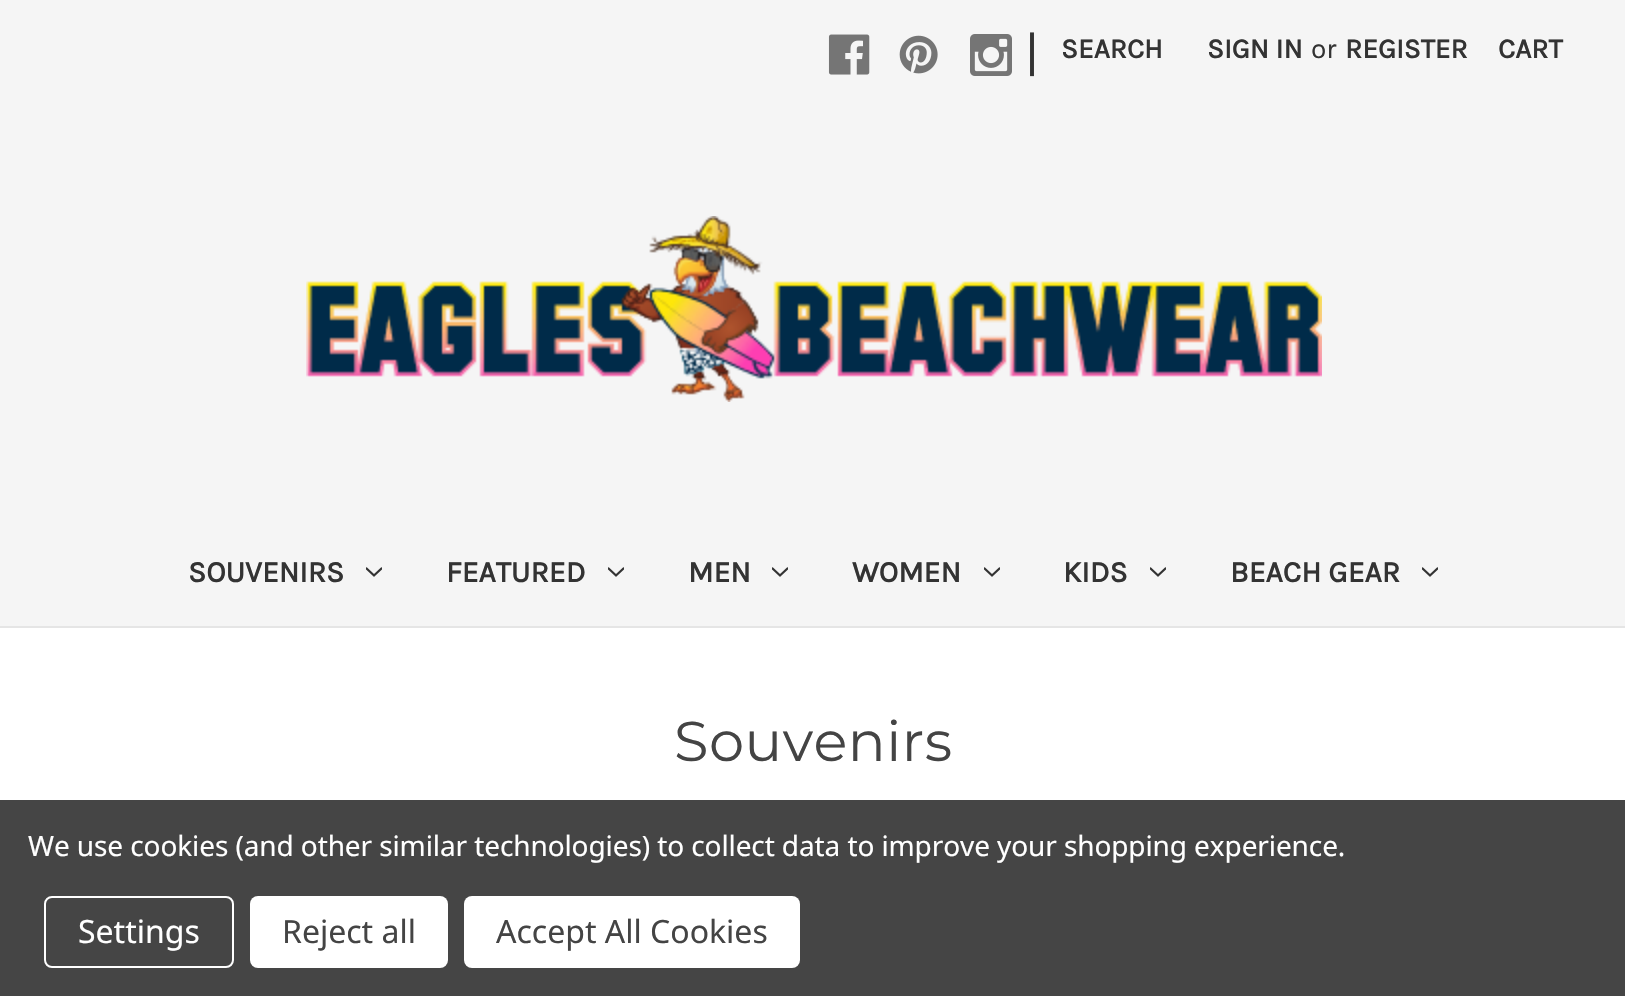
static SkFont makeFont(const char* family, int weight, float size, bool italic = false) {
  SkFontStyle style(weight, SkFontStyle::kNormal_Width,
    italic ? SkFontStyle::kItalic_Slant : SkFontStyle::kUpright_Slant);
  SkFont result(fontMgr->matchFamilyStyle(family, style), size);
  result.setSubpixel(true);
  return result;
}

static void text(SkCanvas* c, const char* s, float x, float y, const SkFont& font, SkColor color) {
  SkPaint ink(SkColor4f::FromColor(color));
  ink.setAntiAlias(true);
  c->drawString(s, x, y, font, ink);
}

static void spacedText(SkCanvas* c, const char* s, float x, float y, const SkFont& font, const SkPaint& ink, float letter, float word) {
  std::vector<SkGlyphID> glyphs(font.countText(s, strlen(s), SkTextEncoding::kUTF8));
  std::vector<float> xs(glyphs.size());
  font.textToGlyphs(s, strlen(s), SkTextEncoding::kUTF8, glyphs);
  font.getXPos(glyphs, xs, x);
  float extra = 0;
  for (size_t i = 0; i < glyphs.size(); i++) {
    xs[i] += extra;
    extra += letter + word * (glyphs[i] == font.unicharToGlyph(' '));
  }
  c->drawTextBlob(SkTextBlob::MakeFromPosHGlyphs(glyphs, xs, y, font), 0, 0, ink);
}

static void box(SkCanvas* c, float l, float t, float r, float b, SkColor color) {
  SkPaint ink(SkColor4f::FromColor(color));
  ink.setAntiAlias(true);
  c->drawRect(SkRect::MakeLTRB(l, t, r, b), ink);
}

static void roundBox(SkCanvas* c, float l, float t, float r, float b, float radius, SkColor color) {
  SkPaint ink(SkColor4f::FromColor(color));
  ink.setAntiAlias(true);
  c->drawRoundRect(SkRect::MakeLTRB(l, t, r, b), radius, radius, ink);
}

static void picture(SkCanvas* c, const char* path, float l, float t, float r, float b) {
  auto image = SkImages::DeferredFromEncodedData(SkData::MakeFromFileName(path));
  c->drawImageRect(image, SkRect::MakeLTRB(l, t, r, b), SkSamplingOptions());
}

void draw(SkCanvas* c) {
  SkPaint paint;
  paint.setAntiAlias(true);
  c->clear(0xffffffff);
  box(c, 0, 0, 1625, 626, 0xfff5f5f5);
  box(c, 0, 626, 1625, 628, 0xffe5e5e5);
  picture(c, "img_01.png", 828, 34, 870, 75);
  picture(c, "img_02.png", 899, 35, 938, 74);
  picture(c, "img_03.png", 970, 34, 1012, 76);
  SkFont face1 = makeFont("Karla", 400, 50);
  text(c, "|", 1025, 70, face1, 0xff333333);
  SkFont face2 = makeFont("Karla", 700, 28);
  text(c, "SEARCH", 1061, 58, face2, 0xff333333);
  text(c, "SIGN IN", 1207, 58, face2, 0xff333333);
  SkFont face3 = makeFont("Karla", 400, 28);
  text(c, "or", 1311, 58, face3, 0xff333333);
  text(c, "REGISTER", 1345, 58, face2, 0xff333333);
  text(c, "CART", 1498, 58, face2, 0xff333333);
  picture(c, "img_04.png", 306, 216, 1322, 402);
  SkFont face4 = makeFont("Karla", 700, 30);
  text(c, "SOUVENIRS", 188, 582, face4, 0xff333333);
  picture(c, "img_05.png", 366, 567, 382, 577);
  text(c, "FEATURED", 446, 582, face4, 0xff333333);
  picture(c, "img_05.png", 608, 567, 624, 577);
  text(c, "MEN", 688, 582, face4, 0xff333333);
  picture(c, "img_05.png", 772, 567, 788, 577);
  text(c, "WOMEN", 852, 582, face4, 0xff333333);
  picture(c, "img_05.png", 984, 567, 1000, 577);
  text(c, "KIDS", 1063, 582, face4, 0xff333333);
  picture(c, "img_05.png", 1150, 567, 1166, 577);
  text(c, "BEACH GEAR", 1230, 582, face4, 0xff333333);
  picture(c, "img_05.png", 1422, 567, 1438, 577);
  SkFont face5 = makeFont("Montserrat", 400, 56);
  paint.setColor(0xff444444);
  spacedText(c, "Souvenirs", 674, 761, face5, paint, 0.5f, 0);
  box(c, 0, 800, 1625, 996, 0xff454545);
  SkFont face6 = makeFont("Noto Sans", 400, 28);
  paint.setColor(0xffffffff);
  spacedText(c, "We use cookies (and other similar technologies) to collect data to improve your shopping experience.", 28, 856, face6, paint, -0.1f, 0);
  paint.setStyle(SkPaint::kStroke_Style);
  paint.setStrokeWidth(2);
  c->drawRoundRect(SkRect::MakeLTRB(45, 897, 233, 967), 7, 7, paint);
  SkFont face7 = makeFont("Noto Sans", 400, 32);
  text(c, "Settings", 78, 943, face7, 0xffffffff);
  roundBox(c, 250, 896, 448, 968, 8, 0xffffffff);
  text(c, "Reject all", 282, 943, face7, 0xff444444);
  roundBox(c, 464, 896, 800, 968, 8, 0xffffffff);
  text(c, "Accept All Cookies", 496, 943, face7, 0xff444444);
}
